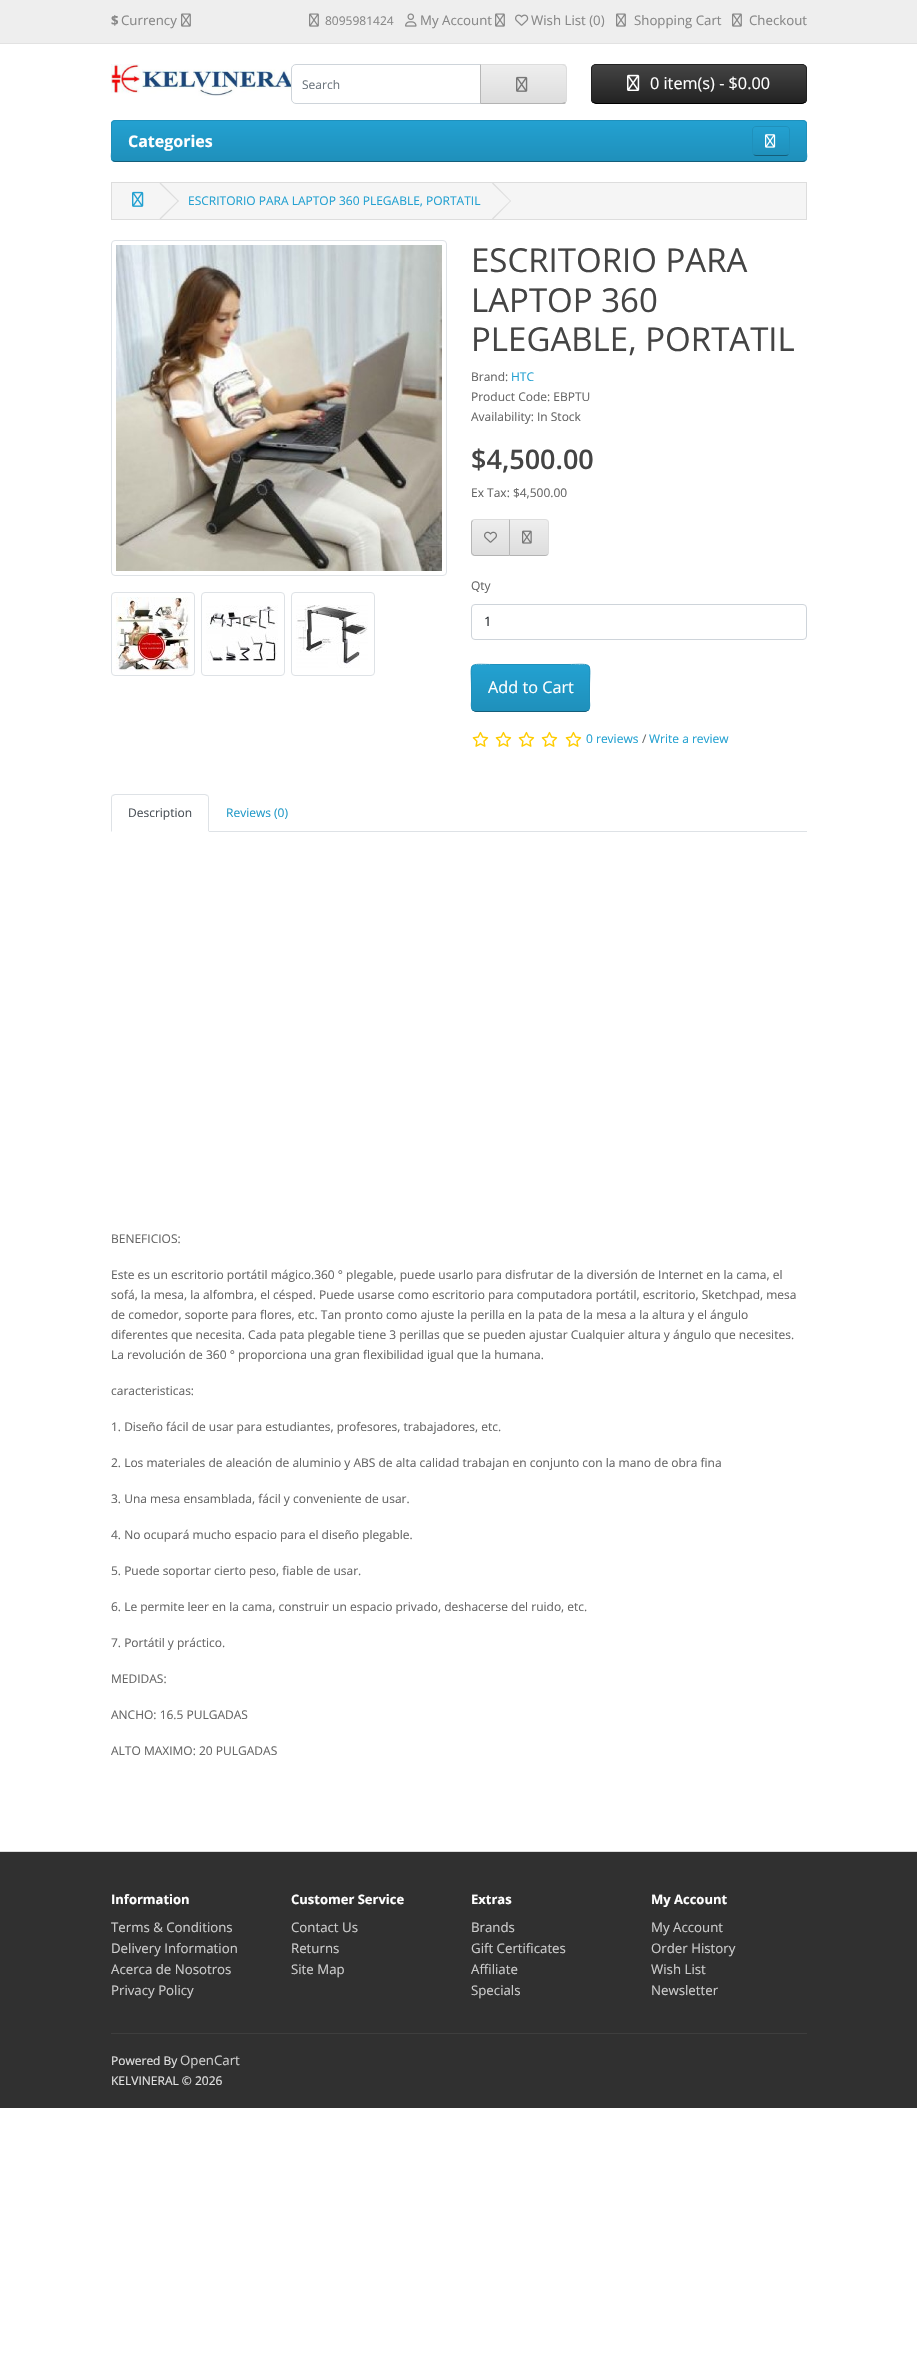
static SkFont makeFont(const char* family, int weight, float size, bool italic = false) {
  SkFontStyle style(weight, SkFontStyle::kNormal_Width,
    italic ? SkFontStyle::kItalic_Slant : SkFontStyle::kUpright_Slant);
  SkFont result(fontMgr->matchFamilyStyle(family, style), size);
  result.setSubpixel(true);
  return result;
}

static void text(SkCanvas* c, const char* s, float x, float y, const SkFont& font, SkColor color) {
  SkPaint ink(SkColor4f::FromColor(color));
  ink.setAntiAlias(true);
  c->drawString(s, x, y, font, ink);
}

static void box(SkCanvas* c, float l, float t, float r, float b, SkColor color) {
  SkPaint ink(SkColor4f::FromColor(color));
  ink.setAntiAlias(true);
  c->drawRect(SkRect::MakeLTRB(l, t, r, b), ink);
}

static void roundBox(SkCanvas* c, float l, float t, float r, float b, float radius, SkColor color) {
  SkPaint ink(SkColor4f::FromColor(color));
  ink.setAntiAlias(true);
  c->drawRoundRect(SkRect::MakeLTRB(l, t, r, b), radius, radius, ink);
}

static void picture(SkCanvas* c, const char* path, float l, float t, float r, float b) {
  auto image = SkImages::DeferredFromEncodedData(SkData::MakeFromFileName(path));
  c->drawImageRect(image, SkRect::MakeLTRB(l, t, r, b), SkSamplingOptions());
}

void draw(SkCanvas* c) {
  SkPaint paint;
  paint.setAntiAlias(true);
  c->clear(0xffffffff);
  box(c, 0, 0, 917, 43, 0xffeeeeee);
  box(c, 0, 43, 917, 44, 0xffe2e2e2);
  SkFont face1 = makeFont("Open Sans", 700, 13.25f);
  text(c, "$", 111, 25, face1, 0xff888888);
  SkFont face2 = makeFont("Open Sans", 400, 13.25f);
  text(c, "Currency", 121, 25, face2, 0xff888888);
  picture(c, "img_01.png", 181, 13, 191, 27);
  picture(c, "img_01.png", 309, 13, 319, 27);
  SkFont face3 = makeFont("Open Sans", 400, 12);
  text(c, "8095981424", 325, 25, face3, 0xff888888);
  picture(c, "img_02.png", 405, 13, 417, 27);
  text(c, "My Account", 420, 25, face2, 0xff888888);
  picture(c, "img_01.png", 495, 13, 505, 27);
  picture(c, "img_03.png", 515, 14, 529, 26);
  text(c, "Wish List (0)", 531, 25, face2, 0xff888888);
  picture(c, "img_01.png", 616, 13, 626, 27);
  text(c, "Shopping Cart", 634, 25, face2, 0xff888888);
  picture(c, "img_01.png", 732, 13, 742, 27);
  text(c, "Checkout", 749, 25, face2, 0xff888888);
  picture(c, "img_04.png", 111, 64, 296, 96);
  paint.setColor(0xffffffff);
  c->drawPath(SkPathBuilder().moveTo(296, 64.5f).lineTo(480.5f, 64.5f).lineTo(480.5f, 103.5f).lineTo(296, 103.5f).cubicTo(293.5f, 103.5f, 291.5f, 101.5f, 291.5f, 99).lineTo(291.5f, 69).cubicTo(291.5f, 66.5f, 293.5f, 64.5f, 296, 64.5f).close().detach(), paint);
  paint.setStyle(SkPaint::kStroke_Style);
  paint.setStrokeWidth(1);
  paint.setColor(0xffced4da);
  c->drawPath(SkPathBuilder().moveTo(296, 64.5f).lineTo(480.5f, 64.5f).lineTo(480.5f, 103.5f).lineTo(296, 103.5f).cubicTo(293.5f, 103.5f, 291.5f, 101.5f, 291.5f, 99).lineTo(291.5f, 69).cubicTo(291.5f, 66.5f, 293.5f, 64.5f, 296, 64.5f).close().detach(), paint);
  text(c, "Search", 302, 89, face3, 0xff6c757d);
  c->save();
  c->clipPath(SkPathBuilder().moveTo(480, 64).lineTo(562, 64).cubicTo(565, 64, 567, 66, 567, 69).lineTo(567, 99).cubicTo(567, 102, 565, 104, 562, 104).lineTo(480, 104).close().detach(), true);
  paint.setStyle(SkPaint::kFill_Style);
  {
    const SkColor colors[] = {0xffeeeeee, 0xffdddddd};
    const float stops[] = {0, 1};
    const SkPoint ends[] = {{524, 65}, {524, 103}};
    paint.setShader(SkGradientShader::MakeLinear(ends, colors, stops, 2, SkTileMode::kClamp));
    paint.setAlpha(255);
  }
  c->drawRect(SkRect::MakeLTRB(481, 65, 567, 103), paint);
  c->restore();
  paint.setShader(nullptr);
  paint.setColor(0xffdddddd);
  c->drawPath(SkPathBuilder().moveTo(480, 64).lineTo(481, 65).lineTo(562, 65).lineTo(565, 66).lineTo(566, 65).cubicTo(565, 64, 564, 64, 562, 64).close().detach(), paint);
  c->drawPath(SkPathBuilder().moveTo(567, 99).lineTo(567, 69).cubicTo(567, 67.5f, 566.5f, 66, 565.5f, 65.5f).lineTo(565, 66).cubicTo(565.5f, 67, 566, 68, 566, 69).lineTo(566, 99).cubicTo(566, 100, 565.5f, 101, 565, 102).lineTo(565.5f, 102.5f).cubicTo(566.5f, 102, 567, 100.5f, 567, 99).close().detach(), paint);
  paint.setColor(0xffb3b3b3);
  c->drawPath(SkPathBuilder().moveTo(562, 104).cubicTo(564, 104, 565, 104, 566, 103).lineTo(565, 102).lineTo(562, 103).lineTo(481, 103).lineTo(480, 104).close().detach(), paint);
  paint.setColor(0xffb7b7b7);
  c->drawPath(SkPathBuilder().moveTo(480, 64).lineTo(480, 104).lineTo(481, 103).lineTo(481, 65).close().detach(), paint);
  picture(c, "img_05.png", 516, 76, 528, 92);
  roundBox(c, 591, 64, 807, 104, 5, 0xff363636);
  c->save();
  c->clipPath(SkPathBuilder().moveTo(596, 64).lineTo(802, 64).cubicTo(805, 64, 807, 66, 807, 69).lineTo(807, 99).cubicTo(807, 102, 805, 104, 802, 104).lineTo(596, 104).cubicTo(593, 104, 591, 102, 591, 99).lineTo(591, 69).cubicTo(591, 66, 593, 64, 596, 64).close().detach(), true);
  {
    const SkColor colors[] = {0xff444444, 0xff222222};
    const float stops[] = {0, 1};
    const SkPoint ends[] = {{699, 65}, {699, 103}};
    paint.setShader(SkGradientShader::MakeLinear(ends, colors, stops, 2, SkTileMode::kClamp));
    paint.setAlpha(255);
  }
  c->drawRect(SkRect::MakeLTRB(591, 65, 807, 103), paint);
  c->restore();
  paint.setStyle(SkPaint::kStroke_Style);
  paint.setShader(nullptr);
  paint.setColor(0xff000000);
  c->drawPath(SkPathBuilder().moveTo(805, 102).lineTo(802.5f, 103.5f).lineTo(630, 103.5f).lineTo(596, 103.5f).lineTo(593, 102).detach(), paint);
  paint.setColor(0xff222222);
  c->drawPath(SkPathBuilder().moveTo(593, 102).cubicTo(592, 101.5f, 591.5f, 100.5f, 591.5f, 99).lineTo(591.5f, 69).cubicTo(591.5f, 67.5f, 592, 66.5f, 593, 66).cubicTo(593.5f, 65, 594.5f, 64.5f, 596, 64.5f).lineTo(802, 64.5f).cubicTo(803.5f, 64.5f, 804.5f, 65, 805, 66).cubicTo(806, 66.5f, 806.5f, 67.5f, 806.5f, 69).lineTo(806.5f, 99).cubicTo(806.5f, 100.5f, 806, 101.5f, 805, 102).detach(), paint);
  picture(c, "img_06.png", 627, 74, 640, 91);
  SkFont face4 = makeFont("Open Sans", 400, 16.25f);
  text(c, "0 item(s) - $0.00", 650, 89, face4, 0xffffffff);
  roundBox(c, 111, 120, 807, 162, 4, 0xff229ac8);
  c->save();
  c->clipPath(SkPathBuilder().moveTo(115, 120).lineTo(803, 120).cubicTo(805, 120, 807, 122, 807, 124).lineTo(807, 158).cubicTo(807, 160, 805, 162, 803, 162).lineTo(115, 162).cubicTo(113, 162, 111, 160, 111, 158).lineTo(111, 124).cubicTo(111, 122, 113, 120, 115, 120).close().detach(), true);
  paint.setStyle(SkPaint::kFill_Style);
  {
    const SkColor colors[] = {0xff23a1d1, 0xff1f90bb};
    const float stops[] = {0, 1};
    const SkPoint ends[] = {{459, 121}, {459, 161}};
    paint.setShader(SkGradientShader::MakeLinear(ends, colors, stops, 2, SkTileMode::kClamp));
    paint.setAlpha(255);
  }
  c->drawRect(SkRect::MakeLTRB(111, 121, 807, 161), paint);
  c->restore();
  paint.setStyle(SkPaint::kStroke_Style);
  paint.setShader(nullptr);
  paint.setColor(0xff145e7a);
  c->drawPath(SkPathBuilder().moveTo(805.5f, 160.5f).lineTo(803, 161.5f).lineTo(115, 161.5f).lineTo(112.5f, 160.5f).detach(), paint);
  paint.setColor(0xff1f90bb);
  c->drawPath(SkPathBuilder().moveTo(112.5f, 160.5f).cubicTo(110.5f, 158.5f, 111.5f, 154, 111.5f, 152.5f).lineTo(111.5f, 123.5f).lineTo(112.5f, 121.5f).lineTo(115, 120.5f).lineTo(803, 120.5f).lineTo(805.5f, 121.5f).lineTo(806.5f, 123.5f).lineTo(806.5f, 152.5f).cubicTo(806.5f, 154, 807.5f, 158.5f, 805.5f, 160.5f).detach(), paint);
  SkFont face5 = makeFont("Open Sans", 700, 16);
  text(c, "Categories", 128, 147, face5, 0xffffffff);
  c->save();
  c->clipPath(SkPathBuilder().moveTo(756, 126).lineTo(786, 126).cubicTo(788, 126, 790, 128, 790, 130).lineTo(790, 152).cubicTo(790, 154, 788, 156, 786, 156).lineTo(756, 156).cubicTo(754, 156, 752, 154, 752, 152).lineTo(752, 130).cubicTo(752, 128, 754, 126, 756, 126).close().detach(), true);
  paint.setStyle(SkPaint::kFill_Style);
  {
    const SkColor colors[] = {0xff23a1d1, 0xff1f90bb};
    const float stops[] = {0, 1};
    const SkPoint ends[] = {{771, 127}, {771, 155}};
    paint.setShader(SkGradientShader::MakeLinear(ends, colors, stops, 2, SkTileMode::kClamp));
    paint.setAlpha(255);
  }
  c->drawRect(SkRect::MakeLTRB(752, 127, 790, 155), paint);
  c->restore();
  paint.setStyle(SkPaint::kStroke_Style);
  paint.setShader(nullptr);
  paint.setColor(0xff145e7a);
  c->drawPath(SkPathBuilder().moveTo(788.5f, 154.5f).cubicTo(788, 155, 787, 155.5f, 786, 155.5f).lineTo(756, 155.5f).cubicTo(755, 155.5f, 754, 155, 753.5f, 154.5f).detach(), paint);
  paint.setColor(0xff1f90bb);
  c->drawPath(SkPathBuilder().moveTo(753.5f, 154.5f).cubicTo(753, 154, 752.5f, 153, 752.5f, 152).lineTo(752.5f, 130).cubicTo(752.5f, 129, 753, 128, 753.5f, 127.5f).cubicTo(754, 127, 755, 126.5f, 756, 126.5f).lineTo(786, 126.5f).cubicTo(787, 126.5f, 788, 127, 788.5f, 127.5f).cubicTo(789, 128, 789.5f, 129, 789.5f, 130).lineTo(789.5f, 152).cubicTo(789.5f, 153, 789, 154, 788.5f, 154.5f).detach(), paint);
  picture(c, "img_07.png", 765, 134, 776, 148);
  paint.setStyle(SkPaint::kFill_Style);
  paint.setColor(0xfff5f5f5);
  c->drawRect(SkRect::MakeLTRB(111.5f, 182.5f, 806.5f, 219.5f), paint);
  paint.setStyle(SkPaint::kStroke_Style);
  paint.setColor(0xffdddddd);
  c->drawRect(SkRect::MakeLTRB(111.5f, 182.5f, 806.5f, 219.5f), paint);
  picture(c, "img_08.png", 132, 191, 144, 207);
  paint.setStyle(SkPaint::kFill_Style);
  c->drawPath(SkPathBuilder().moveTo(159.5f, 183.5f).lineTo(160.5f, 182.5f).lineTo(179, 201).lineTo(178, 201.5f).close().detach(), paint);
  c->drawPath(SkPathBuilder().moveTo(159.5f, 218.5f).lineTo(178, 200.5f).lineTo(179, 201).lineTo(160.5f, 219.5f).close().detach(), paint);
  text(c, "ESCRITORIO PARA LAPTOP 360 PLEGABLE, PORTATIL", 188, 205, face3, 0xff23a1d1);
  c->drawPath(SkPathBuilder().moveTo(492, 183.5f).lineTo(493, 182.5f).lineTo(511, 201).lineTo(510.5f, 201.5f).close().detach(), paint);
  c->drawPath(SkPathBuilder().moveTo(492, 218.5f).lineTo(510.5f, 200.5f).lineTo(511, 201).lineTo(493, 219.5f).close().detach(), paint);
  paint.setStyle(SkPaint::kStroke_Style);
  paint.setColor(0xffdee2e6);
  c->drawRoundRect(SkRect::MakeLTRB(111.5f, 240.5f, 446.5f, 575.5f), 3.5f, 3.5f, paint);
  picture(c, "img_09.png", 116, 245, 442, 571);
  c->drawRoundRect(SkRect::MakeLTRB(111.5f, 592.5f, 194.5f, 675.5f), 3.5f, 3.5f, paint);
  c->drawRoundRect(SkRect::MakeLTRB(201.5f, 592.5f, 284.5f, 675.5f), 3.5f, 3.5f, paint);
  c->drawRoundRect(SkRect::MakeLTRB(291.5f, 592.5f, 374.5f, 675.5f), 3.5f, 3.5f, paint);
  picture(c, "img_10.png", 116, 597, 190, 671);
  picture(c, "img_11.png", 206, 605, 278, 661);
  picture(c, "img_12.png", 296, 605, 368, 668);
  SkFont face6 = makeFont("Open Sans", 400, 33);
  text(c, "ESCRITORIO PARA", 471, 272, face6, 0xff444444);
  text(c, "LAPTOP 360", 471, 312, face6, 0xff444444);
  text(c, "PLEGABLE, PORTATIL", 471, 351, face6, 0xff444444);
  text(c, "Brand:", 471, 381, face3, 0xff666666);
  text(c, "HTC", 511, 381, face3, 0xff23a1d1);
  text(c, "Product Code: EBPTU", 471, 401, face3, 0xff666666);
  text(c, "Availability: In Stock", 471, 421, face3, 0xff666666);
  SkFont face7 = makeFont("Open Sans", 600, 27);
  text(c, "$4,500.00", 471, 469, face7, 0xff444444);
  text(c, "Ex Tax: $4,500.00", 471, 497, face3, 0xff666666);
  c->save();
  c->clipPath(SkPathBuilder().moveTo(475, 519).lineTo(510, 519).lineTo(510, 556).lineTo(475, 556).cubicTo(473, 556, 471, 554, 471, 552).lineTo(471, 523).cubicTo(471, 521, 473, 519, 475, 519).close().detach(), true);
  paint.setStyle(SkPaint::kFill_Style);
  {
    const SkColor colors[] = {0xffeeeeee, 0xffdddddd};
    const float stops[] = {0, 1};
    const SkPoint ends[] = {{491, 520}, {491, 555}};
    paint.setShader(SkGradientShader::MakeLinear(ends, colors, stops, 2, SkTileMode::kClamp));
    paint.setAlpha(255);
  }
  c->drawRect(SkRect::MakeLTRB(471, 520, 509, 555), paint);
  c->restore();
  paint.setShader(nullptr);
  paint.setColor(0xffdddddd);
  c->drawPath(SkPathBuilder().moveTo(475, 519).cubicTo(474, 519, 473, 519.5f, 472, 520).lineTo(473, 521).cubicTo(473.5f, 520.5f, 474, 520, 475, 520).lineTo(509, 520).lineTo(510, 519).close().detach(), paint);
  paint.setColor(0xffb3b3b3);
  c->drawPath(SkPathBuilder().moveTo(510, 556).lineTo(509, 555).lineTo(475, 555).cubicTo(474, 555, 473.5f, 554.5f, 473, 554).lineTo(472, 555).cubicTo(473, 555.5f, 474, 556, 475, 556).close().detach(), paint);
  paint.setColor(0xffb7b7b7);
  c->drawPath(SkPathBuilder().moveTo(471, 523).lineTo(471, 552).cubicTo(471, 553, 471.5f, 554, 472, 555).lineTo(473, 554).cubicTo(472.5f, 553.5f, 472, 553, 472, 552).lineTo(472, 523).cubicTo(472, 522, 472.5f, 521.5f, 473, 521).lineTo(472, 520).cubicTo(471.5f, 521, 471, 522, 471, 523).close().detach(), paint);
  picture(c, "img_13.png", 484, 531, 497, 543);
  c->save();
  c->clipPath(SkPathBuilder().moveTo(509, 519).lineTo(545, 519).cubicTo(547, 519, 549, 521, 549, 523).lineTo(549, 552).cubicTo(549, 554, 547, 556, 545, 556).lineTo(509, 556).close().detach(), true);
  {
    const SkColor colors[] = {0xffeeeeee, 0xffdddddd};
    const float stops[] = {0, 1};
    const SkPoint ends[] = {{529, 520}, {529, 555}};
    paint.setShader(SkGradientShader::MakeLinear(ends, colors, stops, 2, SkTileMode::kClamp));
    paint.setAlpha(255);
  }
  c->drawRect(SkRect::MakeLTRB(510, 520, 549, 555), paint);
  c->restore();
  paint.setShader(nullptr);
  paint.setColor(0xffdddddd);
  c->drawPath(SkPathBuilder().moveTo(509, 519).lineTo(510, 520).lineTo(545, 520).cubicTo(546, 520, 547, 520, 547, 521).lineTo(548, 520).cubicTo(547, 519.5f, 546, 519, 545, 519).close().detach(), paint);
  c->drawPath(SkPathBuilder().moveTo(549, 552).lineTo(549, 523).cubicTo(549, 522, 548.5f, 521, 548, 520).lineTo(547, 521).cubicTo(548, 521, 548, 522, 548, 523).lineTo(548, 552).cubicTo(548, 553, 548, 554, 547, 554).lineTo(548, 555).cubicTo(548.5f, 554, 549, 553, 549, 552).close().detach(), paint);
  paint.setColor(0xffb3b3b3);
  c->drawPath(SkPathBuilder().moveTo(545, 556).cubicTo(546, 556, 547, 555.5f, 548, 555).lineTo(547, 554).cubicTo(547, 555, 546, 555, 545, 555).lineTo(510, 555).lineTo(509, 556).close().detach(), paint);
  paint.setColor(0xffb7b7b7);
  c->drawPath(SkPathBuilder().moveTo(509, 519).lineTo(509, 556).lineTo(510, 555).lineTo(510, 520).close().detach(), paint);
  picture(c, "img_14.png", 522, 530, 532, 544);
  text(c, "Qty", 471, 590, face3, 0xff666666);
  paint.setStyle(SkPaint::kStroke_Style);
  paint.setColor(0xffced4da);
  c->drawRoundRect(SkRect::MakeLTRB(471.5f, 604.5f, 806.5f, 639.5f), 3.5f, 3.5f, paint);
  SkFont face8 = makeFont("Open Sans", 400, 13);
  text(c, "1", 484, 626, face8, 0xff212529);
  c->save();
  c->clipPath(SkPathBuilder().moveTo(476, 664).lineTo(585, 664).cubicTo(588, 664, 590, 666, 590, 669).lineTo(590, 707).cubicTo(590, 710, 588, 712, 585, 712).lineTo(476, 712).cubicTo(473, 712, 471, 710, 471, 707).lineTo(471, 669).cubicTo(471, 666, 473, 664, 476, 664).close().detach(), true);
  paint.setStyle(SkPaint::kFill_Style);
  {
    const SkColor colors[] = {0xff23a1d1, 0xff1f90bb};
    const float stops[] = {0, 1};
    const SkPoint ends[] = {{531, 665}, {531, 711}};
    paint.setShader(SkGradientShader::MakeLinear(ends, colors, stops, 2, SkTileMode::kClamp));
    paint.setAlpha(255);
  }
  c->drawRect(SkRect::MakeLTRB(471, 665, 590, 711), paint);
  c->restore();
  paint.setStyle(SkPaint::kStroke_Style);
  paint.setShader(nullptr);
  paint.setColor(0xff145e7a);
  c->drawPath(SkPathBuilder().moveTo(588, 710).cubicTo(587.5f, 711, 586.5f, 711.5f, 585, 711.5f).lineTo(476, 711.5f).cubicTo(474.5f, 711.5f, 473.5f, 711, 473, 710).detach(), paint);
  paint.setColor(0xff1f90bb);
  c->drawPath(SkPathBuilder().moveTo(473, 710).cubicTo(470.5f, 708, 471.5f, 703, 471.5f, 701).lineTo(471.5f, 688).cubicTo(471.5f, 660.5f, 466.5f, 664.5f, 494, 664.5f).lineTo(567, 664.5f).cubicTo(594.5f, 664.5f, 589.5f, 660.5f, 589.5f, 688).lineTo(589.5f, 701).cubicTo(589.5f, 703, 590.5f, 708, 588, 710).detach(), paint);
  text(c, "Add to Cart", 488, 693, face4, 0xffffffff);
  picture(c, "img_15.png", 472, 731, 489, 747);
  picture(c, "img_15.png", 495, 731, 512, 747);
  picture(c, "img_15.png", 518, 731, 535, 747);
  picture(c, "img_15.png", 541, 731, 558, 747);
  picture(c, "img_15.png", 565, 731, 582, 747);
  text(c, "0 reviews", 586, 743, face3, 0xff23a1d1);
  text(c, "/", 642, 743, face3, 0xff666666);
  text(c, "Write a review", 649, 743, face3, 0xff23a1d1);
  box(c, 209, 831, 807, 832, 0xffdee2e6);
  paint.setStyle(SkPaint::kFill_Style);
  paint.setColor(0xffdee2e6);
  c->drawPath(SkPathBuilder().moveTo(115, 794).lineTo(112, 795).lineTo(113, 796).lineTo(115, 795).lineTo(205, 795).lineTo(207, 796).lineTo(208, 795).lineTo(205, 794).close().detach(), paint);
  c->drawPath(SkPathBuilder().moveTo(209, 832).lineTo(209, 798).cubicTo(209, 797, 208.5f, 796, 208, 795).lineTo(207, 796).cubicTo(208, 796, 208, 797, 208, 798).lineTo(208, 831).close().detach(), paint);
  paint.setColor(0xffffffff);
  c->drawPath(SkPathBuilder().moveTo(209, 832).lineTo(208, 831).lineTo(112, 831).lineTo(111, 832).close().detach(), paint);
  paint.setColor(0xffdee2e6);
  c->drawPath(SkPathBuilder().moveTo(111, 832).lineTo(112, 831).lineTo(112, 798).cubicTo(112, 797, 112, 796, 113, 796).lineTo(112, 795).cubicTo(111.5f, 796, 111, 797, 111, 798).close().detach(), paint);
  text(c, "Description", 128, 817, face3, 0xff495057);
  text(c, "Reviews (0)", 226, 817, face3, 0xff229ac8);
  text(c, "BENEFICIOS:", 111, 1243, face3, 0xff666666);
  text(c, "Este es un escritorio portátil mágico.360 ° plegable, puede usarlo para disfrutar de la diversión de Internet en la cama, el", 111, 1279, face3, 0xff666666);
  text(c, "sofá, la mesa, la alfombra, el césped. Puede usarse como escritorio para computadora portátil, escritorio, Sketchpad, mesa", 111, 1299, face3, 0xff666666);
  text(c, "de comedor, soporte para flores, etc. Tan pronto como ajuste la perilla en la pata de la mesa a la altura y el ángulo", 111, 1319, face3, 0xff666666);
  text(c, "diferentes que necesita. Cada pata plegable tiene 3 perillas que se pueden ajustar Cualquier altura y ángulo que necesites.", 111, 1339, face3, 0xff666666);
  text(c, "La revolución de 360 ° proporciona una gran flexibilidad igual que la humana.", 111, 1359, face3, 0xff666666);
  text(c, "caracteristicas:", 111, 1395, face3, 0xff666666);
  text(c, "1. Diseño fácil de usar para estudiantes, profesores, trabajadores, etc.", 111, 1431, face3, 0xff666666);
  text(c, "2. Los materiales de aleación de aluminio y ABS de alta calidad trabajan en conjunto con la mano de obra fina", 111, 1467, face3, 0xff666666);
  text(c, "3. Una mesa ensamblada, fácil y conveniente de usar.", 111, 1503, face3, 0xff666666);
  text(c, "4. No ocupará mucho espacio para el diseño plegable.", 111, 1539, face3, 0xff666666);
  text(c, "5. Puede soportar cierto peso, fiable de usar.", 111, 1575, face3, 0xff666666);
  text(c, "6. Le permite leer en la cama, construir un espacio privado, deshacerse del ruido, etc.", 111, 1611, face3, 0xff666666);
  text(c, "7. Portátil y práctico.", 111, 1647, face3, 0xff666666);
  text(c, "MEDIDAS:", 111, 1683, face3, 0xff666666);
  text(c, "ANCHO: 16.5 PULGADAS", 111, 1719, face3, 0xff666666);
  text(c, "ALTO MAXIMO: 20 PULGADAS", 111, 1755, face3, 0xff666666);
  box(c, 0, 1852, 917, 2108, 0xff303030);
  box(c, 0, 1851, 917, 1852, 0xffdddddd);
  SkFont face9 = makeFont("Open Sans", 700, 13);
  text(c, "Information", 111, 1904, face9, 0xffffffff);
  text(c, "Terms & Conditions", 111, 1932, face2, 0xffcccccc);
  text(c, "Delivery Information", 111, 1953, face2, 0xffcccccc);
  text(c, "Acerca de Nosotros", 111, 1974, face2, 0xffcccccc);
  text(c, "Privacy Policy", 111, 1995, face2, 0xffcccccc);
  text(c, "Customer Service", 291, 1904, face9, 0xffffffff);
  text(c, "Contact Us", 291, 1932, face2, 0xffcccccc);
  text(c, "Returns", 291, 1953, face2, 0xffcccccc);
  text(c, "Site Map", 291, 1974, face2, 0xffcccccc);
  text(c, "Extras", 471, 1904, face9, 0xffffffff);
  text(c, "Brands", 471, 1932, face2, 0xffcccccc);
  text(c, "Gift Certificates", 471, 1953, face2, 0xffcccccc);
  text(c, "Affiliate", 471, 1974, face2, 0xffcccccc);
  text(c, "Specials", 471, 1995, face2, 0xffcccccc);
  text(c, "My Account", 651, 1904, face9, 0xffffffff);
  text(c, "My Account", 651, 1932, face2, 0xffcccccc);
  text(c, "Order History", 651, 1953, face2, 0xffcccccc);
  text(c, "Wish List", 651, 1974, face2, 0xffcccccc);
  text(c, "Newsletter", 651, 1995, face2, 0xffcccccc);
  box(c, 111, 2033, 807, 2034, 0xff3e3e3e);
  text(c, "Powered By", 111, 2065, face3, 0xffe2e2e2);
  text(c, "OpenCart", 180, 2065, face2, 0xffcccccc);
  text(c, "KELVINERAL © 2026", 111, 2085, face3, 0xffe2e2e2);
}
